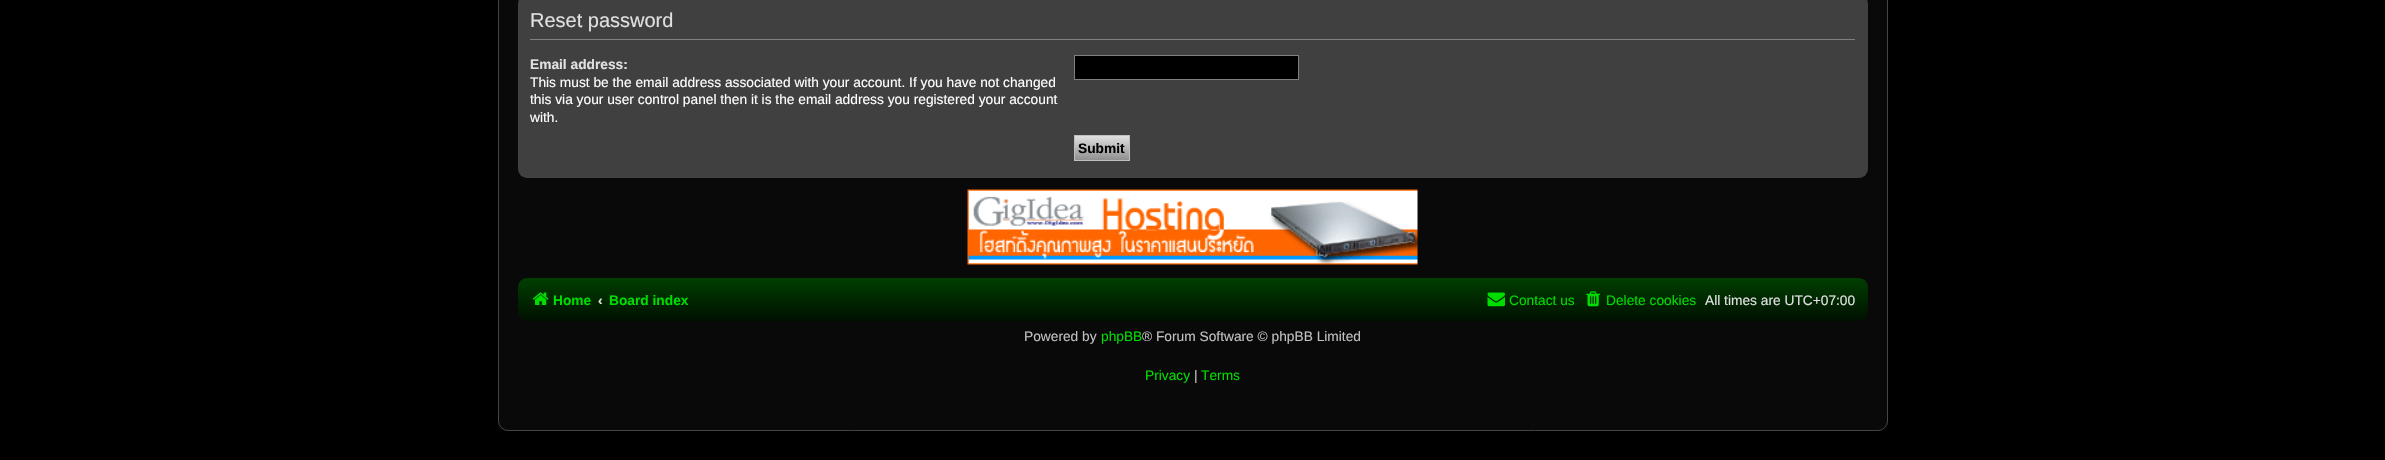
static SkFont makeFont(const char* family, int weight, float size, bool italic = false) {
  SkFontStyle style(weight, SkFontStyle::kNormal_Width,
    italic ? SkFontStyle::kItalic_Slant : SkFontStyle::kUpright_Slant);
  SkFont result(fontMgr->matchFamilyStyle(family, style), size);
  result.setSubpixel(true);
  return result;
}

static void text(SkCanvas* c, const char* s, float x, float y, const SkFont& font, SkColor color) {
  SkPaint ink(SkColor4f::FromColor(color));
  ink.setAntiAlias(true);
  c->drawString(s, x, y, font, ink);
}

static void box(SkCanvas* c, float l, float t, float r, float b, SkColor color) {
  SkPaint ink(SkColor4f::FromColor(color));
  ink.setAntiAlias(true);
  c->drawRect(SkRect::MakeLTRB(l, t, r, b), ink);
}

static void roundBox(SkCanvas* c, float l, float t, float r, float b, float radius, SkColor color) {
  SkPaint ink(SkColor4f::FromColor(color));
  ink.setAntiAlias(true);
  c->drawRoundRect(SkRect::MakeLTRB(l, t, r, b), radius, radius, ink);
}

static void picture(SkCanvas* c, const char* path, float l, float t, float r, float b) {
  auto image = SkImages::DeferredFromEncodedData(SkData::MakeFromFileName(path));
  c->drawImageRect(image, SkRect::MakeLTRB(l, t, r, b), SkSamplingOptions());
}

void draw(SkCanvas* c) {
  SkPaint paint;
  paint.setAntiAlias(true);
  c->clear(0xff000000);
  paint.setColor(0xff090909);
  c->drawRoundRect(SkRect::MakeLTRB(498.5f, -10.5f, 1887.5f, 430.5f), 9.5f, 9.5f, paint);
  paint.setStyle(SkPaint::kStroke_Style);
  paint.setStrokeWidth(1);
  paint.setColor(0xff454545);
  c->drawRoundRect(SkRect::MakeLTRB(498.5f, -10.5f, 1887.5f, 430.5f), 9.5f, 9.5f, paint);
  roundBox(c, 518, -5, 1868, 178, 9, 0xff404040);
  box(c, 530, 39, 1855, 40, 0xff808080);
  SkFont face1 = makeFont("Liberation Sans", 400, 20);
  text(c, "Reset password", 530, 27, face1, 0xffe0e0e0);
  SkFont face2 = makeFont("Liberation Sans", 700, 13.75f);
  text(c, "Email address:", 530, 69, face2, 0xffe0e0e0);
  SkFont face3 = makeFont("Liberation Sans", 400, 13.75f);
  text(c, "This must be the email address associated with your account. If you have not changed", 530, 87, face3, 0xffffffff);
  text(c, "this via your user control panel then it is the email address you registered your account", 530, 104, face3, 0xffffffff);
  text(c, "with.", 530, 122, face3, 0xffffffff);
  paint.setStyle(SkPaint::kFill_Style);
  paint.setColor(0xff000000);
  c->drawRect(SkRect::MakeLTRB(1074.5f, 55.5f, 1298.5f, 79.5f), paint);
  paint.setStyle(SkPaint::kStroke_Style);
  paint.setColor(0xff808080);
  c->drawRect(SkRect::MakeLTRB(1074.5f, 55.5f, 1298.5f, 79.5f), paint);
  paint.setStyle(SkPaint::kFill_Style);
  {
    const SkColor colors[] = {0xffe0e0e0, 0xff909090};
    const float stops[] = {0, 1};
    const SkPoint ends[] = {{1102, 136}, {1102, 160}};
    paint.setShader(SkGradientShader::MakeLinear(ends, colors, stops, 2, SkTileMode::kClamp));
    paint.setAlpha(255);
  }
  c->drawRect(SkRect::MakeLTRB(1075, 136, 1129, 160), paint);
  paint.setStyle(SkPaint::kStroke_Style);
  paint.setShader(nullptr);
  paint.setColor(0xffbfbfbf);
  c->drawRect(SkRect::MakeLTRB(1074.5f, 135.5f, 1129.5f, 160.5f), paint);
  text(c, "Submit", 1078, 153, face2, 0xff020000);
  picture(c, "img_01.png", 967, 189, 1418, 265);
  paint.setStyle(SkPaint::kFill_Style);
  {
    const SkColor colors[] = {0xff004000, 0xff001000};
    const float stops[] = {0, 1};
    const SkPoint ends[] = {{1193, 277}, {1193, 321}};
    paint.setShader(SkGradientShader::MakeLinear(ends, colors, stops, 2, SkTileMode::kClamp));
    paint.setAlpha(255);
  }
  c->drawRoundRect(SkRect::MakeLTRB(518, 278, 1868, 321), 9, 9, paint);
  picture(c, "img_02.png", 532, 292, 549, 305);
  text(c, "Home", 553, 305, face2, 0xff00dd00);
  text(c, "‹", 598, 305, face2, 0xffe0e0e0);
  text(c, "Board index", 609, 305, face2, 0xff00dd00);
  picture(c, "img_03.png", 1487, 292, 1505, 307);
  text(c, "Contact us", 1509, 305, face3, 0xff00dd00);
  picture(c, "img_04.png", 1586, 291, 1600, 307);
  text(c, "Delete cookies", 1606, 305, face3, 0xff00dd00);
  text(c, "All times are UTC+07:00", 1705, 305, face3, 0xffe0e0e0);
  text(c, "Powered by", 1024, 341, face3, 0xffc0c0c0);
  text(c, "phpBB", 1101, 341, face3, 0xff00dd00);
  text(c, "® Forum Software © phpBB Limited", 1142, 341, face3, 0xffc0c0c0);
  text(c, "Privacy", 1145, 380, face3, 0xff00dd00);
  text(c, "|", 1194, 380, face3, 0xffc0c0c0);
  text(c, "Terms", 1201, 380, face3, 0xff00dd00);
}
